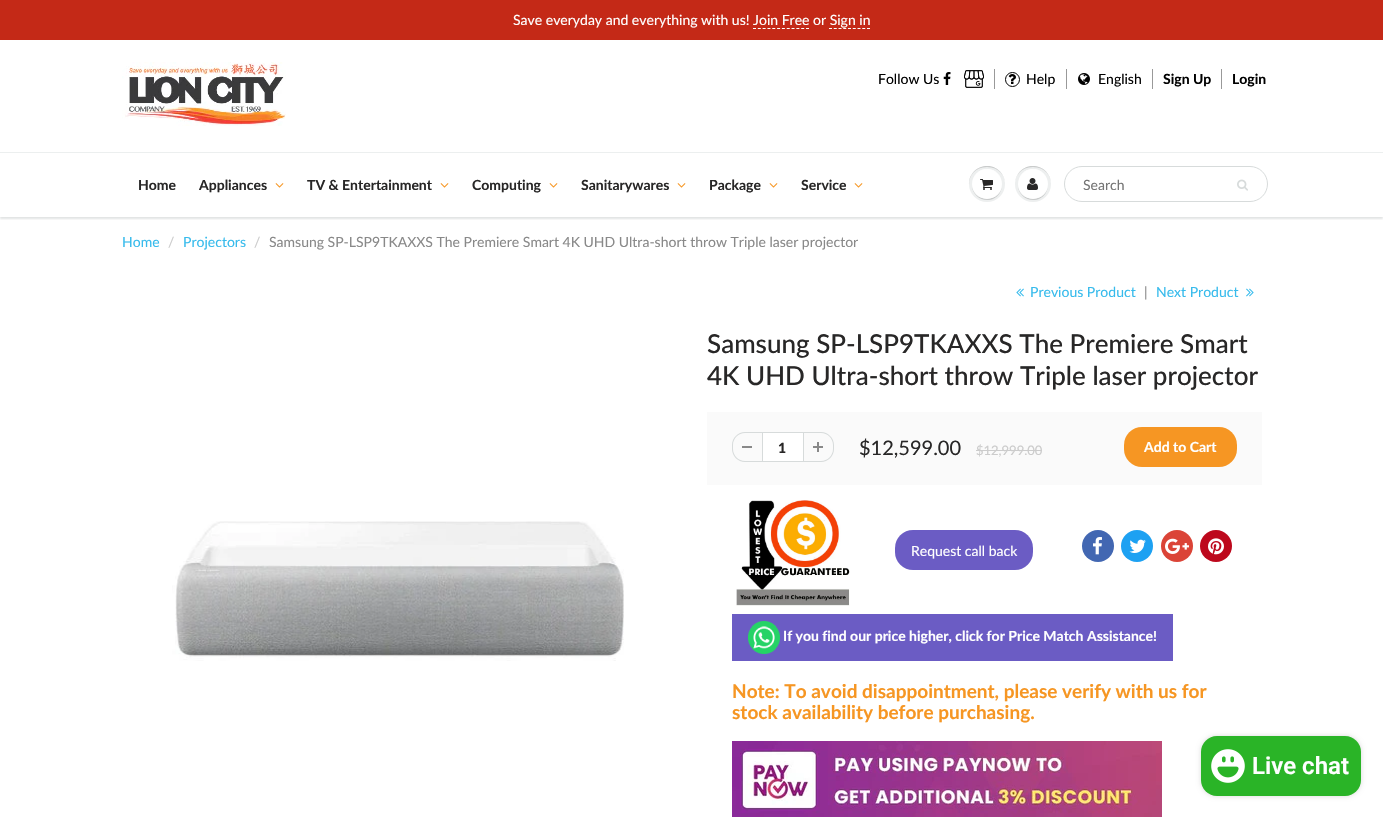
static SkFont makeFont(const char* family, int weight, float size, bool italic = false) {
  SkFontStyle style(weight, SkFontStyle::kNormal_Width,
    italic ? SkFontStyle::kItalic_Slant : SkFontStyle::kUpright_Slant);
  SkFont result(fontMgr->matchFamilyStyle(family, style), size);
  result.setSubpixel(true);
  return result;
}

static void text(SkCanvas* c, const char* s, float x, float y, const SkFont& font, SkColor color) {
  SkPaint ink(SkColor4f::FromColor(color));
  ink.setAntiAlias(true);
  c->drawString(s, x, y, font, ink);
}

static void box(SkCanvas* c, float l, float t, float r, float b, SkColor color) {
  SkPaint ink(SkColor4f::FromColor(color));
  ink.setAntiAlias(true);
  c->drawRect(SkRect::MakeLTRB(l, t, r, b), ink);
}

static void roundBox(SkCanvas* c, float l, float t, float r, float b, float radius, SkColor color) {
  SkPaint ink(SkColor4f::FromColor(color));
  ink.setAntiAlias(true);
  c->drawRoundRect(SkRect::MakeLTRB(l, t, r, b), radius, radius, ink);
}

static void picture(SkCanvas* c, const char* path, float l, float t, float r, float b) {
  auto image = SkImages::DeferredFromEncodedData(SkData::MakeFromFileName(path));
  c->drawImageRect(image, SkRect::MakeLTRB(l, t, r, b), SkSamplingOptions());
}

void draw(SkCanvas* c) {
  SkPaint paint;
  paint.setAntiAlias(true);
  c->clear(0xffffffff);
  box(c, 0, 0, 1383, 40, 0xffc42917);
  SkFont face1 = makeFont("Lato", 400, 14);
  text(c, "Save everyday and everything with us! Join Free or Sign in", 513, 25, face1, 0xffffffff);
  paint.setStyle(SkPaint::kStroke_Style);
  paint.setStrokeWidth(1);
  paint.setColor(0xffffffff);
  paint.setPathEffect(SkDashPathEffect::Make({{3, 1.82f}}, 0));
  c->drawPath(SkPathBuilder().moveTo(753, 28.5f).lineTo(809, 28.5f).detach(), paint);
  paint.setPathEffect(nullptr);
  paint.setPathEffect(SkDashPathEffect::Make({{3, 1.75f}}, 0));
  c->drawPath(SkPathBuilder().moveTo(829, 28.5f).lineTo(870, 28.5f).detach(), paint);
  paint.setPathEffect(nullptr);
  picture(c, "img_01.png", 122, 62, 286, 126);
  box(c, 994, 69, 995, 89, 0xff999999);
  text(c, "Follow Us", 878, 84, face1, 0xff000000);
  picture(c, "img_02.png", 943, 72, 951, 85);
  picture(c, "img_03.png", 964, 70, 984, 88);
  box(c, 1066, 69, 1067, 89, 0xff999999);
  paint.setColor(0xff000000);
  c->drawCircle(1012.5f, 79.5f, 7, paint);
  picture(c, "img_04.png", 1008, 74, 1016, 84);
  text(c, "Help", 1026, 84, face1, 0xff000000);
  box(c, 1152, 69, 1153, 89, 0xff999999);
  picture(c, "img_05.png", 1078, 73, 1090, 85);
  text(c, "English", 1098, 84, face1, 0xff000000);
  box(c, 1221, 69, 1222, 89, 0xff999999);
  SkFont face2 = makeFont("Lato", 700, 14);
  text(c, "Sign Up", 1163, 84, face2, 0xff000000);
  text(c, "Login", 1232, 84, face2, 0xff000000);
  c->save();
  c->clipRect(SkRect::MakeLTRB(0, 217, 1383, 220));
  paint.setStyle(SkPaint::kFill_Style);
  paint.setColor(0x1f0b191c);
  paint.setMaskFilter(SkMaskFilter::MakeBlur(kNormal_SkBlurStyle, 1));
  c->drawRect(SkRect::MakeLTRB(0, 154, 1383, 219), paint);
  paint.setMaskFilter(nullptr);
  c->restore();
  box(c, 0, 152, 1383, 153, 0xffecefef);
  text(c, "Home", 138, 190, face2, 0xff282727);
  text(c, "Appliances", 199, 190, face2, 0xff282727);
  picture(c, "img_06.png", 275, 183, 284, 188);
  text(c, "TV & Entertainment", 307, 190, face2, 0xff282727);
  picture(c, "img_06.png", 440, 183, 449, 188);
  text(c, "Computing", 472, 190, face2, 0xff282727);
  picture(c, "img_06.png", 549, 183, 558, 188);
  text(c, "Sanitarywares", 581, 190, face2, 0xff282727);
  picture(c, "img_06.png", 677, 183, 686, 188);
  text(c, "Package", 709, 190, face2, 0xff282727);
  picture(c, "img_06.png", 769, 183, 778, 188);
  text(c, "Service", 801, 190, face2, 0xff282727);
  picture(c, "img_06.png", 854, 183, 863, 188);
  paint.setColor(0xffedefef);
  c->drawCircle(987, 184, 18, paint);
  paint.setColor(0xffc9cbcb);
  c->drawPath(SkPathBuilder().moveTo(987, 167).cubicTo(999, 167, 1005, 175.5f, 1005, 184.5f).cubicTo(1005, 181, 1004, 177, 1002, 174).cubicTo(992, 159, 968.5f, 166.5f, 969, 184.5f).cubicTo(969, 175.5f, 975, 167, 987, 167).close().detach(), paint);
  c->drawPath(SkPathBuilder().moveTo(1002, 184.5f).cubicTo(1001.5f, 203.5f, 972.5f, 203.5f, 972, 184.5f).cubicTo(971.5f, 199.5f, 991, 206, 999.5f, 193.5f).cubicTo(1001, 191, 1002, 187.5f, 1002, 184.5f).close().detach(), paint);
  paint.setColor(0xffffffff);
  c->drawCircle(987, 184, 15, paint);
  c->drawPath(SkPathBuilder().moveTo(987, 170).cubicTo(997, 170, 1002, 177, 1002, 184.5f).cubicTo(1002, 181.5f, 1001, 178, 999.5f, 175.5f).cubicTo(991, 163, 971.5f, 169.5f, 972, 184.5f).cubicTo(972, 177, 977, 170, 987, 170).close().detach(), paint);
  picture(c, "img_07.png", 980, 179, 993, 190);
  paint.setColor(0xffedefef);
  c->drawCircle(1033, 184, 18, paint);
  paint.setColor(0xffc9cbcb);
  c->drawPath(SkPathBuilder().moveTo(1033, 167).cubicTo(1045, 167, 1051, 175.5f, 1051, 184.5f).cubicTo(1051.5f, 166.5f, 1028, 159, 1018, 174).cubicTo(1016, 177, 1015, 181, 1015, 184.5f).cubicTo(1015, 175.5f, 1021, 167, 1033, 167).close().detach(), paint);
  c->drawPath(SkPathBuilder().moveTo(1048, 184.5f).cubicTo(1047.5f, 203.5f, 1018.5f, 203.5f, 1018, 184.5f).cubicTo(1017.5f, 199.5f, 1037, 206, 1045.5f, 193.5f).cubicTo(1047, 191, 1048, 187.5f, 1048, 184.5f).close().detach(), paint);
  paint.setColor(0xffffffff);
  c->drawCircle(1033, 184, 15, paint);
  c->drawPath(SkPathBuilder().moveTo(1033, 170).cubicTo(1043, 170, 1048, 177, 1048, 184.5f).cubicTo(1048.5f, 169.5f, 1029, 163, 1020.5f, 175.5f).cubicTo(1019, 178, 1018, 181.5f, 1018, 184.5f).cubicTo(1018, 177, 1023, 170, 1033, 170).close().detach(), paint);
  picture(c, "img_08.png", 1027, 178, 1038, 190);
  paint.setStyle(SkPaint::kStroke_Style);
  paint.setColor(0xffd7dbdb);
  c->drawRoundRect(SkRect::MakeLTRB(1064.5f, 166.5f, 1267.5f, 201.5f), 17.5f, 17.5f, paint);
  text(c, "Search", 1083, 190, face1, 0xff757575);
  picture(c, "img_09.png", 1237, 179, 1248, 191);
  text(c, "Home", 122, 247, face1, 0xff37bbec);
  text(c, "/", 168, 247, face1, 0xffcccccc);
  text(c, "Projectors", 183, 247, face1, 0xff37bbec);
  text(c, "/", 254, 247, face1, 0xffcccccc);
  text(c, "Samsung SP-LSP9TKAXXS The Premiere Smart 4K UHD Ultra-short throw Triple laser projector", 269, 247, face1, 0xff898989);
  picture(c, "img_10.png", 1016, 288, 1024, 297);
  text(c, "Previous Product", 1030, 297, face1, 0xff37bbec);
  text(c, "|", 1144, 297, face1, 0xff898989);
  text(c, "Next Product", 1156, 297, face1, 0xff37bbec);
  picture(c, "img_11.png", 1246, 288, 1254, 297);
  picture(c, "img_12.png", 172, 521, 624, 661);
  SkFont face3 = makeFont("Lato", 500, 26);
  text(c, "Samsung SP-LSP9TKAXXS The Premiere Smart", 707, 353, face3, 0xff282727);
  text(c, "4K UHD Ultra-short throw Triple laser projector", 707, 385, face3, 0xff282727);
  box(c, 707, 412, 1262, 485, 0xfffafafa);
  box(c, 742, 446, 752, 448, 0xff898989);
  paint.setStyle(SkPaint::kFill_Style);
  c->drawPath(SkPathBuilder(SkPathFillType::kEvenOdd).moveTo(745, 432).lineTo(762, 432).lineTo(762, 462).lineTo(745, 462).cubicTo(738, 462, 732, 456, 732, 449).lineTo(732, 445).cubicTo(732, 438, 738, 432, 745, 432).close().moveTo(745, 433).lineTo(762, 433).lineTo(762, 461).lineTo(745, 461).cubicTo(738.5f, 461, 733, 455.5f, 733, 449).lineTo(733, 445).cubicTo(733, 438.5f, 738.5f, 433, 745, 433).close().detach(), paint);
  paint.setColor(0xffffffff);
  c->drawRect(SkRect::MakeLTRB(762.5f, 432.5f, 803.5f, 461.5f), paint);
  paint.setStyle(SkPaint::kStroke_Style);
  paint.setColor(0xffd7dbdb);
  c->drawRect(SkRect::MakeLTRB(762.5f, 432.5f, 803.5f, 461.5f), paint);
  SkFont face4 = makeFont("Lato", 900, 14);
  text(c, "1", 778, 453, face4, 0xff282727);
  picture(c, "img_13.png", 813, 442, 823, 452);
  paint.setStyle(SkPaint::kFill_Style);
  c->drawPath(SkPathBuilder(SkPathFillType::kEvenOdd).moveTo(804, 432).lineTo(821, 432).cubicTo(828, 432, 834, 438, 834, 445).lineTo(834, 449).cubicTo(834, 456, 828, 462, 821, 462).lineTo(804, 462).close().moveTo(804, 433).lineTo(821, 433).cubicTo(827.5f, 433, 833, 438.5f, 833, 445).lineTo(833, 449).cubicTo(833, 455.5f, 827.5f, 461, 821, 461).lineTo(804, 461).close().detach(), paint);
  SkFont face5 = makeFont("Lato", 400, 20);
  text(c, "$12,599.00", 859, 455, face5, 0xff282727);
  SkFont face6 = makeFont("Lato", 400, 13);
  text(c, "$12,999.00", 976, 455, face6, 0xffcccccc);
  box(c, 976, 450, 1042, 451, 0xffcccccc);
  roundBox(c, 1124, 427, 1237, 467, 18, 0xfff69623);
  text(c, "Add to Cart", 1144, 452, face2, 0xffffffff);
  picture(c, "img_14.png", 736, 500, 850, 606);
  roundBox(c, 895, 530, 1033, 570, 18, 0xff6b5cc4);
  text(c, "Request call back", 911, 556, face1, 0xffffffff);
  paint.setColor(0xff4267b2);
  c->drawCircle(1098, 546, 16, paint);
  picture(c, "img_15.png", 1093, 537, 1102, 555);
  paint.setColor(0xff1da1f2);
  c->drawCircle(1137, 546, 16, paint);
  picture(c, "img_16.png", 1129, 539, 1146, 553);
  paint.setColor(0xffdb4437);
  c->drawCircle(1177, 546, 16, paint);
  picture(c, "img_17.png", 1165, 538, 1189, 554);
  paint.setColor(0xffbd081c);
  c->drawCircle(1216, 546, 16, paint);
  picture(c, "img_18.png", 1208, 538, 1224, 555);
  box(c, 732, 614, 1173, 661, 0xff6b5cc4);
  picture(c, "img_19.png", 748, 621, 780, 654);
  text(c, "If you find our price higher, click for Price Match Assistance!", 783, 641, face2, 0xffffffff);
  SkFont face7 = makeFont("Lato", 700, 19);
  text(c, "Note: To avoid disappointment, please verify with us for", 732, 698, face7, 0xfff69623);
  text(c, "stock availability before purchasing.", 732, 719, face7, 0xfff69623);
  picture(c, "img_20.png", 732, 741, 1162, 817);
  paint.setColor(0x26000000);
  paint.setMaskFilter(SkMaskFilter::MakeBlur(kNormal_SkBlurStyle, 2.5f));
  c->drawRoundRect(SkRect::MakeLTRB(1201, 736, 1361, 796), 16, 16, paint);
  paint.setMaskFilter(nullptr);
  roundBox(c, 1201, 736, 1361, 796, 16, 0xff2ab427);
  picture(c, "img_21.png", 1211, 749, 1245, 783);
  SkFont face8 = makeFont("Roboto", 600, 24);
  text(c, "Live chat", 1252, 774, face8, 0xffffffff);
}
